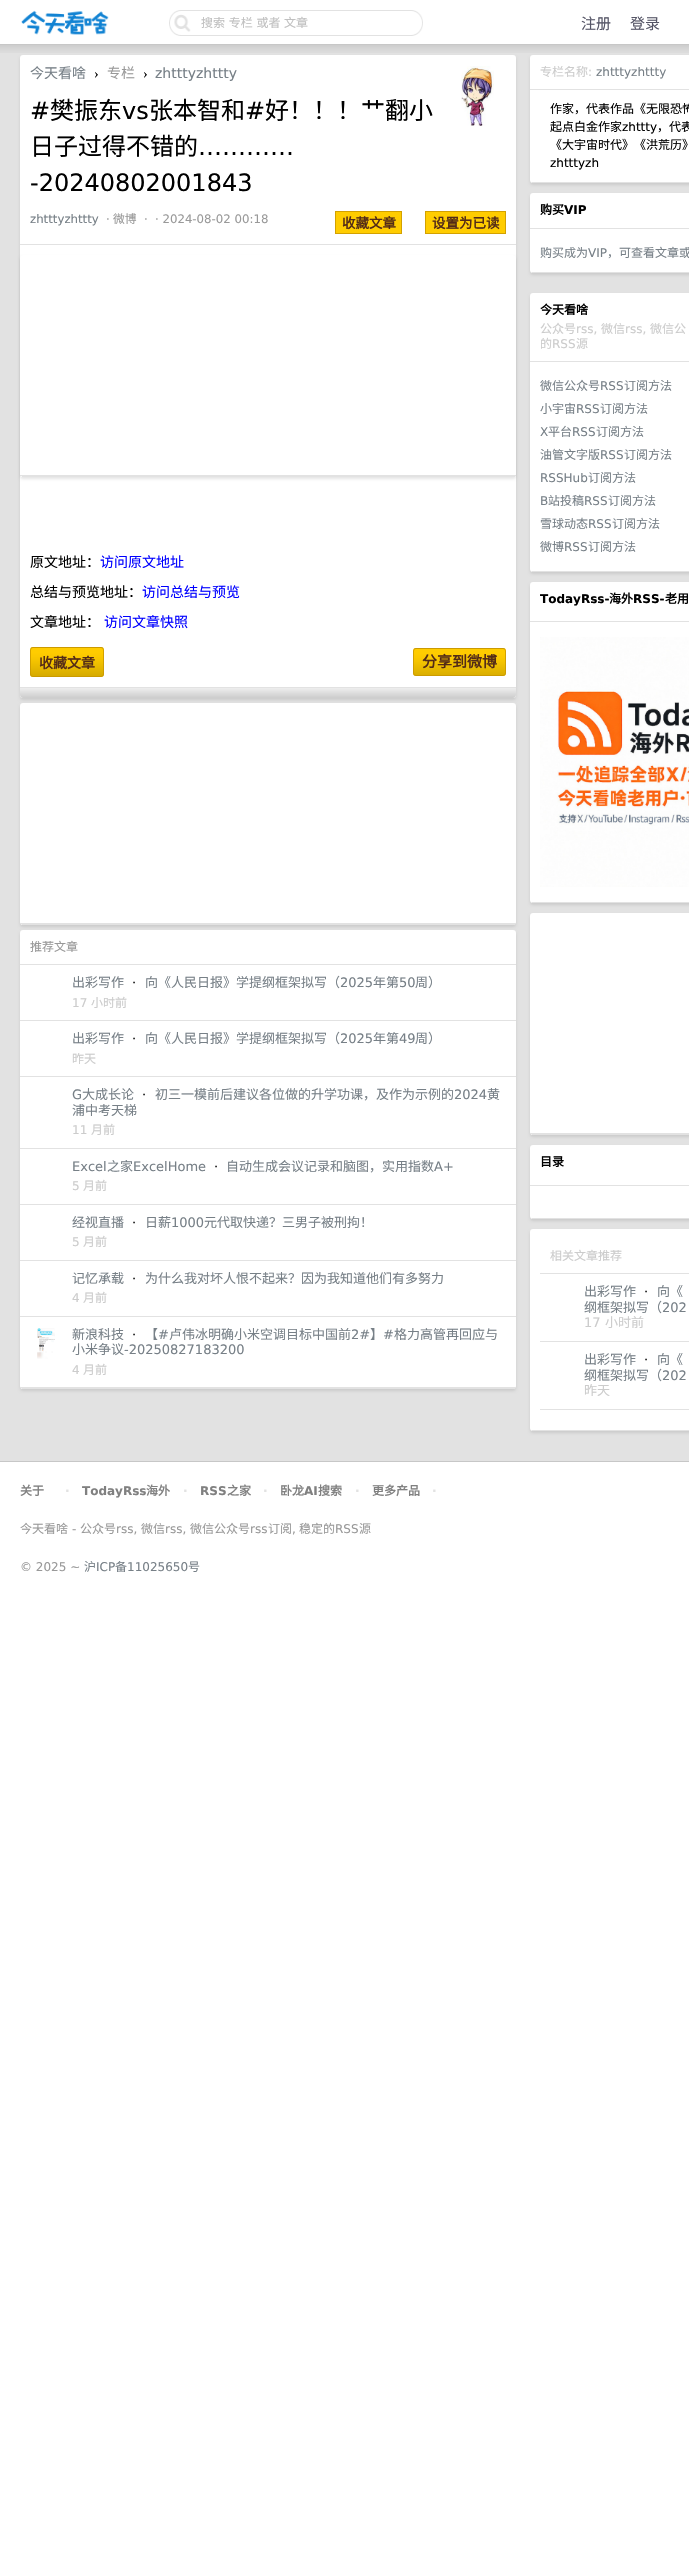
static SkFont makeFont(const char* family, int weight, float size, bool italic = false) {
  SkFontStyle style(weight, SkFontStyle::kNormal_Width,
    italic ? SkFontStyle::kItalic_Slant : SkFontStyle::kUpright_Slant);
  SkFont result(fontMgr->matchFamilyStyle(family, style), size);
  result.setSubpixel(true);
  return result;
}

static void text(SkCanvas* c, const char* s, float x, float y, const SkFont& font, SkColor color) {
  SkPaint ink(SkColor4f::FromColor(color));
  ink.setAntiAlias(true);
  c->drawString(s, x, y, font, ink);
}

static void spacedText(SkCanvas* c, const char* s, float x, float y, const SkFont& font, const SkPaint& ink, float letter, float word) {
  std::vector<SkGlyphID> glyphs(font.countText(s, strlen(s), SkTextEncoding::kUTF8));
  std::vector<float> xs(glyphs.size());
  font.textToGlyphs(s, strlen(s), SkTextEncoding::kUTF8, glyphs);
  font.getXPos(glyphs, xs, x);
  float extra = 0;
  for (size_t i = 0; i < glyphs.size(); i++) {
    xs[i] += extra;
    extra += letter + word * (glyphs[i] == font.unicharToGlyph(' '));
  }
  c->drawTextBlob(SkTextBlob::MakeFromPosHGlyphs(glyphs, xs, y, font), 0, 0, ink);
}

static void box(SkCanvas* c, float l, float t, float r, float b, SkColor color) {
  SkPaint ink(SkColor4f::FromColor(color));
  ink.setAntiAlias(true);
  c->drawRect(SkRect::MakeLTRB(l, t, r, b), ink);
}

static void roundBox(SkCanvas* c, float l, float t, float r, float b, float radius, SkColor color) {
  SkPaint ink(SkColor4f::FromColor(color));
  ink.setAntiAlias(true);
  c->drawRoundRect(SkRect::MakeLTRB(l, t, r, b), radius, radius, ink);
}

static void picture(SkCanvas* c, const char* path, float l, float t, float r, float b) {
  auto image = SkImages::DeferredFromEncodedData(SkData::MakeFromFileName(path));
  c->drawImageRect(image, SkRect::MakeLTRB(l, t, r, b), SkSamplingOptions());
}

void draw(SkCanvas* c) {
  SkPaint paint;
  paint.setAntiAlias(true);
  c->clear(0xffffffff);
  box(c, 0, 44, 689, 45, 0xffc7c7c7);
  picture(c, "img_01.png", 21, 10, 109, 35);
  picture(c, "img_02.png", 169, 10, 423, 36);
  SkFont face1 = makeFont("Noto Sans CJK SC", 400, 12);
  paint.setColor(0xffc0c0c0);
  spacedText(c, "搜索 专栏 或者 文章", 201, 27, face1, paint, 0, 1);
  SkFont face2 = makeFont("Noto Sans CJK SC", 400, 15);
  text(c, "注册", 581, 29, face2, 0xff555566);
  text(c, "登录", 630, 29, face2, 0xff555566);
  box(c, 0, 45, 689, 1461, 0xffe2e2e2);
  picture(c, "img_03.png", 0, 45, 689, 53);
  paint.setColor(0x1a000000);
  paint.setMaskFilter(SkMaskFilter::MakeBlur(kNormal_SkBlurStyle, 1.5f));
  c->drawRoundRect(SkRect::MakeLTRB(20, 57, 516, 700), 3, 3, paint);
  paint.setMaskFilter(nullptr);
  roundBox(c, 20, 55, 516, 698, 3, 0xffffffff);
  box(c, 20, 244, 516, 245, 0xffe2e2e2);
  SkFont face3 = makeFont("Noto Sans CJK SC", 400, 14);
  text(c, "今天看啥", 30, 78, face3, 0xff778087);
  SkFont face4 = makeFont("Liberation Serif", 400, 14);
  text(c, "›", 94, 78, face4, 0xff000000);
  text(c, "专栏", 107, 78, face3, 0xff999999);
  text(c, "›", 143, 78, face4, 0xff000000);
  SkFont face5 = makeFont("DejaVu Sans", 400, 14);
  text(c, "zhtttyzhttty", 155, 78, face5, 0xff778087);
  picture(c, "img_04.png", 461, 66, 494, 126);
  SkFont face6 = makeFont("DejaVu Sans", 400, 24);
  text(c, "#", 30, 119, face6, 0xff000000);
  SkFont face7 = makeFont("Noto Sans CJK SC", 400, 24);
  text(c, "樊振东", 50, 119, face7, 0xff000000);
  text(c, "vs", 122, 119, face6, 0xff000000);
  text(c, "张本智和", 149, 119, face7, 0xff000000);
  text(c, "#", 245, 119, face6, 0xff000000);
  text(c, "好！！！艹翻小", 265, 119, face7, 0xff000000);
  text(c, "日子过得不错的", 30, 155, face7, 0xff000000);
  text(c, "…………", 198, 155, face6, 0xff000000);
  text(c, "-20240802001843", 30, 191, face6, 0xff000000);
  SkFont face8 = makeFont("DejaVu Sans", 400, 11.75f);
  text(c, "zhtttyzhttty", 30, 223, face8, 0xff778087);
  text(c, "·", 106, 223, face8, 0xff999999);
  SkFont face9 = makeFont("Noto Sans CJK SC", 400, 11.75f);
  text(c, "微博", 113, 223, face9, 0xff999999);
  text(c, "·", 144, 223, face8, 0xff999999);
  text(c, "· 2024-08-02 00:18", 155, 223, face8, 0xff999999);
  paint.setColor(0xffffcc00);
  c->drawRect(SkRect::MakeLTRB(335.5f, 211.5f, 401.5f, 233.5f), paint);
  paint.setStyle(SkPaint::kStroke_Style);
  paint.setStrokeWidth(1);
  paint.setColor(0xffd3a100);
  c->drawRect(SkRect::MakeLTRB(335.5f, 211.5f, 401.5f, 233.5f), paint);
  SkFont face10 = makeFont("Noto Sans CJK SC", 700, 13.5f);
  text(c, "收藏文章", 342, 228, face10, 0xff532b17);
  paint.setStyle(SkPaint::kFill_Style);
  paint.setColor(0xffffcc00);
  c->drawRect(SkRect::MakeLTRB(425.5f, 211.5f, 505.5f, 233.5f), paint);
  paint.setStyle(SkPaint::kStroke_Style);
  paint.setColor(0xffd3a100);
  c->drawRect(SkRect::MakeLTRB(425.5f, 211.5f, 505.5f, 233.5f), paint);
  text(c, "设置为已读", 432, 228, face10, 0xff532b17);
  paint.setStyle(SkPaint::kFill_Style);
  paint.setColor(0x1a000000);
  paint.setMaskFilter(SkMaskFilter::MakeBlur(kNormal_SkBlurStyle, 1.5f));
  c->drawRoundRect(SkRect::MakeLTRB(20, 257, 516, 479), 3, 3, paint);
  paint.setMaskFilter(nullptr);
  roundBox(c, 20, 255, 516, 477, 3, 0xffffffff);
  box(c, 22, 476, 515, 477, 0xffe2e2e2);
  box(c, 20, 475, 516, 476, 0xffe2e2e2);
  box(c, 20, 687, 516, 688, 0xffe2e2e2);
  text(c, "原文地址：", 30, 567, face3, 0xff000000);
  text(c, "访问原文地址", 100, 567, face3, 0xff0000ff);
  text(c, "总结与预览地址：", 30, 597, face3, 0xff000000);
  text(c, "访问总结与预览", 142, 597, face3, 0xff0000ff);
  text(c, "文章地址：", 30, 627, face3, 0xff000000);
  text(c, "访问文章快照", 104, 627, face3, 0xff0000ff);
  roundBox(c, 30, 647, 104, 677, 3, 0xffffcc00);
  picture(c, "img_05.png", 30, 647, 104, 677);
  paint.setStyle(SkPaint::kStroke_Style);
  paint.setColor(0xccc89600);
  c->drawRoundRect(SkRect::MakeLTRB(30.5f, 647.5f, 103.5f, 676.5f), 2.5f, 2.5f, paint);
  SkFont face11 = makeFont("Noto Sans CJK SC", 700, 14);
  text(c, "收藏文章", 39, 668, face11, 0xff532b17);
  roundBox(c, 413, 648, 506, 676, 3, 0xffffcc00);
  picture(c, "img_06.png", 413, 648, 506, 676);
  c->drawRoundRect(SkRect::MakeLTRB(413.5f, 648.5f, 505.5f, 675.5f), 2.5f, 2.5f, paint);
  SkFont face12 = makeFont("Noto Sans CJK SC", 700, 15);
  text(c, "分享到微博", 422, 667, face12, 0xff532b17);
  paint.setStyle(SkPaint::kFill_Style);
  {
    const SkColor colors[] = {0xffeeeeee, 0xffcccccc};
    const float stops[] = {0, 1};
    const SkPoint ends[] = {{268, 688}, {268, 698}};
    paint.setShader(SkGradientShader::MakeLinear(ends, colors, stops, 2, SkTileMode::kClamp));
    paint.setAlpha(255);
  }
  c->drawPath(SkPathBuilder().moveTo(20, 688).lineTo(516, 688).lineTo(516, 695).cubicTo(516, 696.5f, 514.5f, 698, 513, 698).lineTo(23, 698).cubicTo(21.5f, 698, 20, 696.5f, 20, 695).close().detach(), paint);
  paint.setShader(nullptr);
  paint.setColor(0x1a000000);
  paint.setMaskFilter(SkMaskFilter::MakeBlur(kNormal_SkBlurStyle, 1.5f));
  c->drawRoundRect(SkRect::MakeLTRB(20, 705, 516, 927), 3, 3, paint);
  paint.setMaskFilter(nullptr);
  roundBox(c, 20, 703, 516, 925, 3, 0xffffffff);
  box(c, 22, 924, 515, 925, 0xffe2e2e2);
  box(c, 20, 923, 516, 924, 0xffe2e2e2);
  paint.setMaskFilter(SkMaskFilter::MakeBlur(kNormal_SkBlurStyle, 1.5f));
  c->drawRoundRect(SkRect::MakeLTRB(20, 932, 516, 1391), 3, 3, paint);
  paint.setMaskFilter(nullptr);
  roundBox(c, 20, 930, 516, 1389, 3, 0xffffffff);
  box(c, 22, 1388, 515, 1389, 0xffe2e2e2);
  box(c, 20, 964, 516, 965, 0xffe2e2e2);
  text(c, "推荐文章", 30, 951, face1, 0xff999999);
  box(c, 20, 1020, 516, 1021, 0xffe2e2e2);
  SkFont face13 = makeFont("Noto Sans CJK SC", 400, 13);
  text(c, "出彩写作", 72, 987, face13, 0xff778087);
  SkFont face14 = makeFont("DejaVu Sans", 400, 13);
  text(c, "·", 132, 987, face14, 0xff000000);
  text(c, "向《人民日报》学提纲框架拟写（", 145, 987, face13, 0xff778087);
  text(c, "2025", 340, 987, face14, 0xff778087);
  text(c, "年第", 373, 987, face13, 0xff778087);
  text(c, "50", 399, 987, face14, 0xff778087);
  text(c, "周）", 415, 987, face13, 0xff778087);
  SkFont face15 = makeFont("DejaVu Sans", 400, 12);
  text(c, "17", 72, 1007, face15, 0xffcccccc);
  text(c, "小时前", 91, 1007, face1, 0xffcccccc);
  box(c, 20, 1076, 516, 1077, 0xffe2e2e2);
  text(c, "出彩写作", 72, 1043, face13, 0xff778087);
  text(c, "·", 132, 1043, face14, 0xff000000);
  text(c, "向《人民日报》学提纲框架拟写（", 145, 1043, face13, 0xff778087);
  text(c, "2025", 340, 1043, face14, 0xff778087);
  text(c, "年第", 373, 1043, face13, 0xff778087);
  text(c, "49", 399, 1043, face14, 0xff778087);
  text(c, "周）", 415, 1043, face13, 0xff778087);
  text(c, "昨天", 72, 1063, face1, 0xffcccccc);
  box(c, 20, 1148, 516, 1149, 0xffe2e2e2);
  text(c, "G", 72, 1099, face14, 0xff778087);
  text(c, "大成长论", 82, 1099, face13, 0xff778087);
  text(c, "·", 142, 1099, face14, 0xff000000);
  text(c, "初三一模前后建议各位做的升学功课，及作为示例的", 155, 1099, face13, 0xff778087);
  text(c, "2024", 454, 1099, face14, 0xff778087);
  text(c, "黄", 487, 1099, face13, 0xff778087);
  text(c, "浦中考天梯", 72, 1115, face13, 0xff778087);
  text(c, "11", 72, 1134, face15, 0xffcccccc);
  text(c, "月前", 91, 1134, face1, 0xffcccccc);
  box(c, 20, 1204, 516, 1205, 0xffe2e2e2);
  text(c, "Excel", 72, 1171, face14, 0xff778087);
  text(c, "之家", 107, 1171, face13, 0xff778087);
  text(c, "ExcelHome", 133, 1171, face14, 0xff778087);
  text(c, "·", 214, 1171, face14, 0xff000000);
  text(c, "自动生成会议记录和脑图，实用指数", 226, 1171, face13, 0xff778087);
  text(c, "A+", 434, 1171, face14, 0xff778087);
  text(c, "5", 72, 1190, face15, 0xffcccccc);
  text(c, "月前", 83, 1190, face1, 0xffcccccc);
  box(c, 20, 1260, 516, 1261, 0xffe2e2e2);
  text(c, "经视直播", 72, 1227, face13, 0xff778087);
  text(c, "·", 132, 1227, face14, 0xff000000);
  text(c, "日薪", 145, 1227, face13, 0xff778087);
  text(c, "1000", 171, 1227, face14, 0xff778087);
  text(c, "元代取快递？三男子被刑拘！", 204, 1227, face13, 0xff778087);
  text(c, "5", 72, 1246, face15, 0xffcccccc);
  text(c, "月前", 83, 1246, face1, 0xffcccccc);
  box(c, 20, 1316, 516, 1317, 0xffe2e2e2);
  text(c, "记忆承载", 72, 1283, face13, 0xff778087);
  text(c, "·", 132, 1283, face14, 0xff000000);
  text(c, "为什么我对坏人恨不起来？因为我知道他们有多努力", 145, 1283, face13, 0xff778087);
  text(c, "4", 72, 1302, face15, 0xffcccccc);
  text(c, "月前", 83, 1302, face1, 0xffcccccc);
  box(c, 20, 1387, 516, 1388, 0xffe2e2e2);
  picture(c, "img_07.png", 37, 1328, 55, 1359);
  text(c, "新浪科技", 72, 1339, face13, 0xff778087);
  text(c, "·", 132, 1339, face14, 0xff000000);
  text(c, "【", 145, 1339, face13, 0xff778087);
  text(c, "#", 158, 1339, face14, 0xff778087);
  text(c, "卢伟冰明确小米空调目标中国前", 169, 1339, face13, 0xff778087);
  text(c, "2#", 351, 1339, face14, 0xff778087);
  text(c, "】", 370, 1339, face13, 0xff778087);
  text(c, "#", 383, 1339, face14, 0xff778087);
  text(c, "格力高管再回应与", 394, 1339, face13, 0xff778087);
  text(c, "小米争议", 72, 1354, face13, 0xff778087);
  text(c, "-20250827183200", 124, 1354, face14, 0xff778087);
  text(c, "4", 72, 1374, face15, 0xffcccccc);
  text(c, "月前", 83, 1374, face1, 0xffcccccc);
  paint.setMaskFilter(SkMaskFilter::MakeBlur(kNormal_SkBlurStyle, 1.5f));
  c->drawRoundRect(SkRect::MakeLTRB(530, 57, 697, 185), 3, 3, paint);
  paint.setMaskFilter(nullptr);
  roundBox(c, 530, 55, 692, 183, 3, 0xffffffff);
  box(c, 532, 182, 689, 183, 0xffe2e2e2);
  box(c, 530, 89, 689, 90, 0xffe2e2e2);
  text(c, "专栏名称", 540, 76, face1, 0xffcccccc);
  text(c, ":", 588, 76, face15, 0xffcccccc);
  text(c, "zhtttyzhttty", 596, 76, face15, 0xff778087);
  text(c, "作家，代表作品《无限恐怖", 550, 113, face1, 0xff000000);
  text(c, "起点白金作家", 550, 131, face1, 0xff000000);
  text(c, "zhttty", 622, 131, face15, 0xff000000);
  text(c, "，代表", 657, 131, face1, 0xff000000);
  text(c, "《大宇宙时代》《洪荒历》", 550, 149, face1, 0xff000000);
  text(c, "zhtttyzh", 550, 167, face15, 0xff000000);
  paint.setMaskFilter(SkMaskFilter::MakeBlur(kNormal_SkBlurStyle, 1.5f));
  c->drawRoundRect(SkRect::MakeLTRB(530, 195, 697, 275), 3, 3, paint);
  paint.setMaskFilter(nullptr);
  roundBox(c, 530, 193, 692, 273, 3, 0xffffffff);
  box(c, 532, 272, 689, 273, 0xffe2e2e2);
  box(c, 530, 228, 689, 229, 0xffe2e2e2);
  SkFont face16 = makeFont("Noto Sans CJK SC", 700, 12);
  text(c, "购买", 540, 214, face16, 0xff000000);
  SkFont face17 = makeFont("DejaVu Sans", 700, 12);
  text(c, "VIP", 564, 214, face17, 0xff000000);
  text(c, "购买成为", 540, 257, face1, 0xff778087);
  text(c, "VIP", 588, 257, face15, 0xff778087);
  text(c, "，可查看文章或", 607, 257, face1, 0xff778087);
  paint.setMaskFilter(SkMaskFilter::MakeBlur(kNormal_SkBlurStyle, 1.5f));
  c->drawRoundRect(SkRect::MakeLTRB(530, 295, 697, 574), 3, 3, paint);
  paint.setMaskFilter(nullptr);
  roundBox(c, 530, 293, 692, 572, 3, 0xffffffff);
  box(c, 532, 571, 689, 572, 0xffe2e2e2);
  box(c, 530, 361, 689, 362, 0xffe2e2e2);
  text(c, "今天看啥", 540, 314, face16, 0xff000000);
  text(c, "公众号", 540, 333, face1, 0xffcccccc);
  text(c, "rss,", 576, 333, face15, 0xffcccccc);
  text(c, "微信", 601, 333, face1, 0xffcccccc);
  text(c, "rss,", 625, 333, face15, 0xffcccccc);
  text(c, "微信公", 650, 333, face1, 0xffcccccc);
  text(c, "的", 540, 348, face1, 0xffcccccc);
  text(c, "RSS", 552, 348, face15, 0xffcccccc);
  text(c, "源", 576, 348, face1, 0xffcccccc);
  text(c, "微信公众号", 540, 390, face1, 0xff778087);
  text(c, "RSS", 600, 390, face15, 0xff778087);
  text(c, "订阅方法", 624, 390, face1, 0xff778087);
  text(c, "小宇宙", 540, 413, face1, 0xff778087);
  text(c, "RSS", 576, 413, face15, 0xff778087);
  text(c, "订阅方法", 600, 413, face1, 0xff778087);
  text(c, "X", 540, 436, face15, 0xff778087);
  text(c, "平台", 548, 436, face1, 0xff778087);
  text(c, "RSS", 572, 436, face15, 0xff778087);
  text(c, "订阅方法", 596, 436, face1, 0xff778087);
  text(c, "油管文字版", 540, 459, face1, 0xff778087);
  text(c, "RSS", 600, 459, face15, 0xff778087);
  text(c, "订阅方法", 624, 459, face1, 0xff778087);
  text(c, "RSSHub", 540, 482, face15, 0xff778087);
  text(c, "订阅方法", 588, 482, face1, 0xff778087);
  text(c, "B", 540, 505, face15, 0xff778087);
  text(c, "站投稿", 548, 505, face1, 0xff778087);
  text(c, "RSS", 584, 505, face15, 0xff778087);
  text(c, "订阅方法", 608, 505, face1, 0xff778087);
  text(c, "雪球动态", 540, 528, face1, 0xff778087);
  text(c, "RSS", 588, 528, face15, 0xff778087);
  text(c, "订阅方法", 612, 528, face1, 0xff778087);
  text(c, "微博", 540, 551, face1, 0xff778087);
  text(c, "RSS", 564, 551, face15, 0xff778087);
  text(c, "订阅方法", 588, 551, face1, 0xff778087);
  paint.setMaskFilter(SkMaskFilter::MakeBlur(kNormal_SkBlurStyle, 1.5f));
  c->drawRoundRect(SkRect::MakeLTRB(530, 584, 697, 905), 3, 3, paint);
  paint.setMaskFilter(nullptr);
  roundBox(c, 530, 582, 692, 903, 3, 0xffffffff);
  box(c, 532, 902, 689, 903, 0xffe2e2e2);
  box(c, 530, 621, 689, 622, 0xffe2e2e2);
  text(c, "TodayRss-", 540, 603, face17, 0xff000000);
  text(c, "海外", 609, 603, face16, 0xff000000);
  text(c, "RSS-", 633, 603, face17, 0xff000000);
  text(c, "老用", 665, 603, face16, 0xff000000);
  picture(c, "img_08.png", 540, 637, 689, 887);
  paint.setMaskFilter(SkMaskFilter::MakeBlur(kNormal_SkBlurStyle, 1.5f));
  c->drawRoundRect(SkRect::MakeLTRB(530, 915, 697, 1137), 3, 3, paint);
  paint.setMaskFilter(nullptr);
  roundBox(c, 530, 913, 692, 1135, 3, 0xffffffff);
  box(c, 532, 1134, 689, 1135, 0xffe2e2e2);
  box(c, 530, 1133, 689, 1134, 0xffe2e2e2);
  paint.setMaskFilter(SkMaskFilter::MakeBlur(kNormal_SkBlurStyle, 1.5f));
  c->drawRoundRect(SkRect::MakeLTRB(530, 1147, 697, 1221), 3, 3, paint);
  paint.setMaskFilter(nullptr);
  roundBox(c, 530, 1145, 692, 1219, 3, 0xffffffff);
  box(c, 532, 1218, 689, 1219, 0xffe2e2e2);
  box(c, 530, 1185, 689, 1186, 0xffe2e2e2);
  text(c, "目录", 540, 1166, face16, 0xff000000);
  paint.setMaskFilter(SkMaskFilter::MakeBlur(kNormal_SkBlurStyle, 1.5f));
  c->drawRoundRect(SkRect::MakeLTRB(530, 1231, 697, 1433), 3, 3, paint);
  paint.setMaskFilter(nullptr);
  roundBox(c, 530, 1229, 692, 1431, 3, 0xffffffff);
  box(c, 532, 1430, 689, 1431, 0xffe2e2e2);
  box(c, 540, 1273, 689, 1274, 0xffe2e2e2);
  text(c, "相关文章推荐", 550, 1260, face1, 0xffcccccc);
  box(c, 540, 1341, 689, 1342, 0xffe2e2e2);
  text(c, "出彩写作", 584, 1296, face13, 0xff778087);
  text(c, "·", 644, 1296, face14, 0xff000000);
  text(c, "向《", 657, 1296, face13, 0xff778087);
  text(c, "纲框架拟写（", 584, 1312, face13, 0xff778087);
  text(c, "202", 662, 1312, face14, 0xff778087);
  text(c, "17", 584, 1327, face14, 0xffcccccc);
  text(c, "小时前", 605, 1327, face13, 0xffcccccc);
  box(c, 540, 1409, 689, 1410, 0xffe2e2e2);
  text(c, "出彩写作", 584, 1364, face13, 0xff778087);
  text(c, "·", 644, 1364, face14, 0xff000000);
  text(c, "向《", 657, 1364, face13, 0xff778087);
  text(c, "纲框架拟写（", 584, 1380, face13, 0xff778087);
  text(c, "202", 662, 1380, face14, 0xff778087);
  text(c, "昨天", 584, 1395, face13, 0xffcccccc);
  box(c, 0, 1461, 689, 1462, 0xffc7c7c7);
  text(c, "关于", 20, 1495, face16, 0xff808080);
  text(c, "·", 65, 1495, face17, 0xffe2e2e2);
  text(c, "TodayRss", 82, 1495, face17, 0xff808080);
  text(c, "海外", 146, 1495, face16, 0xff808080);
  text(c, "·", 183, 1495, face17, 0xffe2e2e2);
  text(c, "RSS", 200, 1495, face17, 0xff808080);
  text(c, "之家", 227, 1495, face16, 0xff808080);
  text(c, "·", 263, 1495, face17, 0xffe2e2e2);
  text(c, "卧龙", 280, 1495, face16, 0xff808080);
  text(c, "AI", 304, 1495, face17, 0xff808080);
  text(c, "搜索", 318, 1495, face16, 0xff808080);
  text(c, "·", 355, 1495, face17, 0xffe2e2e2);
  text(c, "更多产品", 372, 1495, face16, 0xff808080);
  text(c, "·", 432, 1495, face17, 0xffe2e2e2);
  text(c, "今天看啥", 20, 1533, face1, 0xff999999);
  text(c, "-", 72, 1533, face15, 0xff999999);
  text(c, "公众号", 80, 1533, face1, 0xff999999);
  text(c, "rss,", 116, 1533, face15, 0xff999999);
  text(c, "微信", 141, 1533, face1, 0xff999999);
  text(c, "rss,", 165, 1533, face15, 0xff999999);
  text(c, "微信公众号", 190, 1533, face1, 0xff999999);
  text(c, "rss", 250, 1533, face15, 0xff999999);
  text(c, "订阅", 268, 1533, face1, 0xff999999);
  text(c, "稳定的", 299, 1533, face1, 0xff999999);
  text(c, "RSS", 335, 1533, face15, 0xff999999);
  text(c, "源", 359, 1533, face1, 0xff999999);
  text(c, ",", 292, 1533, face15, 0xff999999);
  text(c, "© 2025 ~", 20, 1571, face15, 0xff999999);
  text(c, "沪", 84, 1571, face1, 0xff778087);
  text(c, "ICP", 96, 1571, face15, 0xff778087);
  text(c, "备", 115, 1571, face1, 0xff778087);
  text(c, "11025650", 127, 1571, face15, 0xff778087);
  text(c, "号", 188, 1571, face1, 0xff778087);
}
